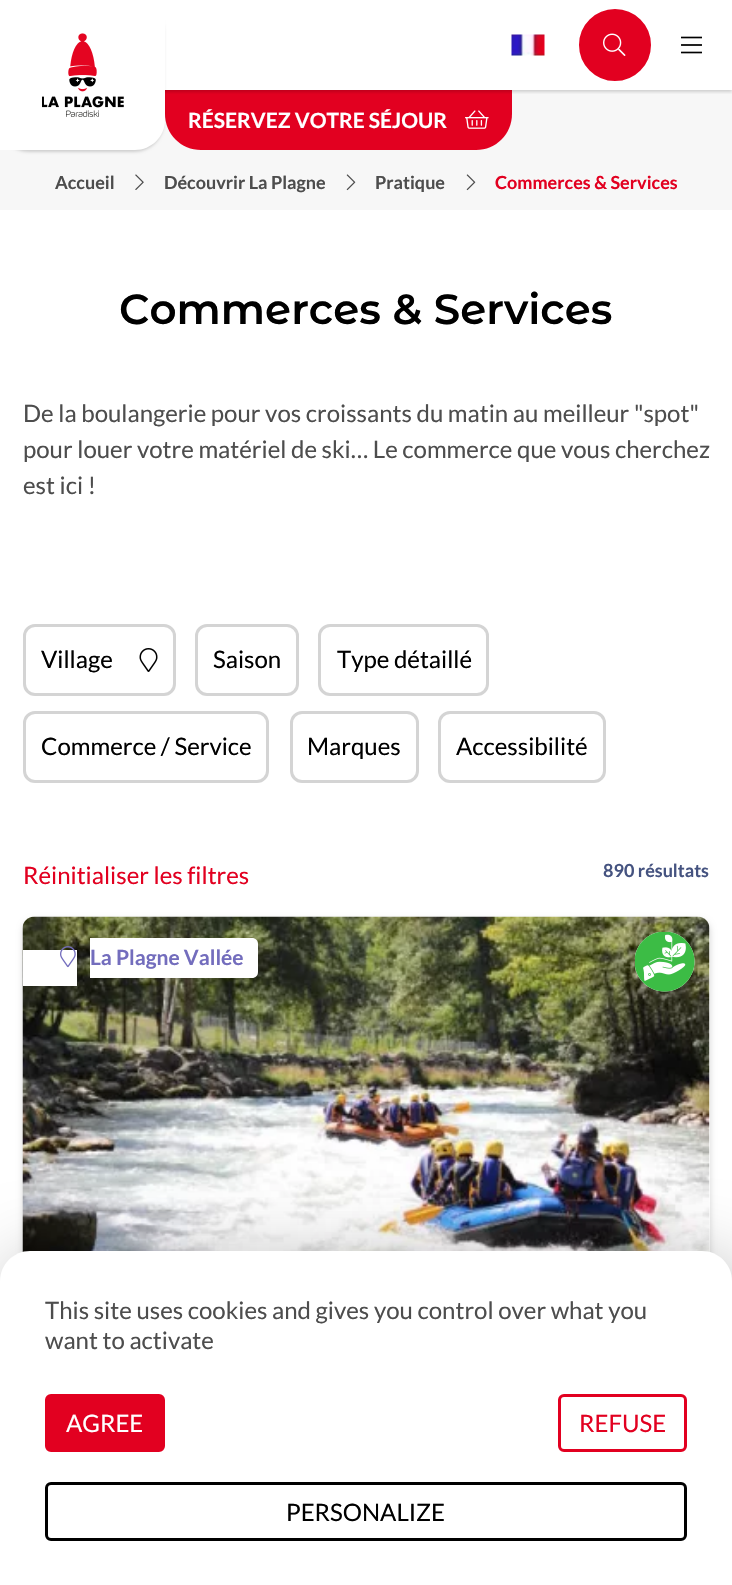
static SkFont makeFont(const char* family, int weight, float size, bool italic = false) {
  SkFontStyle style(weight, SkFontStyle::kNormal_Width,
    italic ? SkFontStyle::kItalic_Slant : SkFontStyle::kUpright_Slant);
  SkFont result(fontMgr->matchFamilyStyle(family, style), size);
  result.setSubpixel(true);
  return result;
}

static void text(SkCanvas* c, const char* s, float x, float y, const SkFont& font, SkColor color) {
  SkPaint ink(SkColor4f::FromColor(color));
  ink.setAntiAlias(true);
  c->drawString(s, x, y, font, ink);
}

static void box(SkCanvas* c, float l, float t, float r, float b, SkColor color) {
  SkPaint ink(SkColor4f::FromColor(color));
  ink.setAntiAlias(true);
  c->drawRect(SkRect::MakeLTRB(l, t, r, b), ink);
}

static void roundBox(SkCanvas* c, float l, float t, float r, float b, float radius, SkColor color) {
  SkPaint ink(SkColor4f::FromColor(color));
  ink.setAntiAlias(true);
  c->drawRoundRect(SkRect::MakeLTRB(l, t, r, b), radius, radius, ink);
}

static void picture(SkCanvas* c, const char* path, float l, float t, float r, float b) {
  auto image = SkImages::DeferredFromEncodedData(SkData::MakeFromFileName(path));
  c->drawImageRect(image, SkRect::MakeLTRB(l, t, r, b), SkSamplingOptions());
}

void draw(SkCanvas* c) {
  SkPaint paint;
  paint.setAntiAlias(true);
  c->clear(0xffffffff);
  box(c, 0, 90, 732, 210, 0xfff7f7f7);
  paint.setColor(0xffe20020);
  c->drawPath(SkPathBuilder().moveTo(165, 90).lineTo(512, 90).lineTo(512, 114).cubicTo(512, 134, 496, 150, 476, 150).lineTo(201, 150).cubicTo(181, 150, 165, 134, 165, 114).close().detach(), paint);
  c->save();
  c->clipRect(SkRect::MakeLTRB(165, 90, 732, 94));
  paint.setColor(0x29000000);
  paint.setMaskFilter(SkMaskFilter::MakeBlur(kNormal_SkBlurStyle, 1.5f));
  c->drawRect(SkRect::MakeLTRB(0, 2, 732, 92), paint);
  paint.setMaskFilter(nullptr);
  c->restore();
  picture(c, "img_01.png", 511, 34, 545, 56);
  paint.setColor(0xffe20020);
  c->drawCircle(615, 45, 35, paint);
  paint.setStyle(SkPaint::kStroke_Style);
  paint.setStrokeWidth(2);
  c->drawCircle(615, 45, 35, paint);
  picture(c, "img_02.png", 603, 33, 626, 56);
  picture(c, "img_03.png", 681, 36, 702, 54);
  paint.setStyle(SkPaint::kFill_Style);
  paint.setColor(0x29000000);
  paint.setMaskFilter(SkMaskFilter::MakeBlur(kNormal_SkBlurStyle, 1.5f));
  c->drawRoundRect(SkRect::MakeLTRB(-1, 2, 164, 152), 30, 30, paint);
  paint.setMaskFilter(nullptr);
  paint.setColor(0xffffffff);
  c->drawPath(SkPathBuilder().moveTo(0, 0).lineTo(165, 0).lineTo(165, 120).cubicTo(165, 136.5f, 151.5f, 150, 135, 150).lineTo(0, 150).close().detach(), paint);
  picture(c, "img_04.png", 42, 33, 124, 117);
  SkFont face1 = makeFont("Lato", 700, 21);
  text(c, "RÉSERVEZ VOTRE SÉJOUR", 188, 128, face1, 0xffffffff);
  picture(c, "img_05.png", 465, 110, 489, 129);
  SkFont face2 = makeFont("Lato", 700, 18);
  text(c, "Accueil", 55, 189, face2, 0xff4d4d4d);
  picture(c, "img_06.png", 135, 174, 144, 190);
  text(c, "Découvrir La Plagne", 164, 189, face2, 0xff4d4d4d);
  picture(c, "img_07.png", 346, 174, 356, 191);
  text(c, "Pratique", 375, 189, face2, 0xff4d4d4d);
  picture(c, "img_07.png", 466, 174, 476, 191);
  text(c, "Commerces & Services", 495, 189, face2, 0xffe20020);
  SkFont face3 = makeFont("Montserrat Alternates", 600, 42);
  text(c, "Commerces & Services", 119, 324, face3, 0xff000000);
  SkFont face4 = makeFont("Lato", 400, 24);
  text(c, "De la boulangerie pour vos croissants du matin au meilleur \"spot\"", 23, 422, face4, 0xff4d4d4d);
  text(c, "pour louer votre matériel de ski… Le commerce que vous cherchez", 23, 458, face4, 0xff4d4d4d);
  text(c, "est ici !", 23, 494, face4, 0xff4d4d4d);
  paint.setStyle(SkPaint::kStroke_Style);
  paint.setStrokeWidth(3);
  paint.setColor(0xffd4d4d4);
  c->drawRoundRect(SkRect::MakeLTRB(24.5f, 625.5f, 174.5f, 694.5f), 10.5f, 10.5f, paint);
  text(c, "Village", 41, 668, face4, 0xff000000);
  picture(c, "img_08.png", 139, 648, 158, 672);
  c->drawRoundRect(SkRect::MakeLTRB(196.5f, 625.5f, 297.5f, 694.5f), 10.5f, 10.5f, paint);
  text(c, "Saison", 213, 668, face4, 0xff000000);
  c->drawRoundRect(SkRect::MakeLTRB(319.5f, 625.5f, 487.5f, 694.5f), 10.5f, 10.5f, paint);
  text(c, "Type détaillé", 337, 668, face4, 0xff000000);
  c->drawRoundRect(SkRect::MakeLTRB(24.5f, 712.5f, 267.5f, 781.5f), 10.5f, 10.5f, paint);
  text(c, "Commerce / Service", 41, 755, face4, 0xff000000);
  c->drawRoundRect(SkRect::MakeLTRB(291.5f, 712.5f, 417.5f, 781.5f), 10.5f, 10.5f, paint);
  text(c, "Marques", 307, 755, face4, 0xff000000);
  c->drawRoundRect(SkRect::MakeLTRB(439.5f, 712.5f, 604.5f, 781.5f), 10.5f, 10.5f, paint);
  text(c, "Accessibilité", 456, 755, face4, 0xff000000);
  text(c, "Réinitialiser les filtres", 23, 884, face4, 0xffe20020);
  text(c, "890 résultats", 603, 877, face2, 0xff455380);
  paint.setStyle(SkPaint::kFill_Style);
  paint.setColor(0x29000000);
  paint.setMaskFilter(SkMaskFilter::MakeBlur(kNormal_SkBlurStyle, 3));
  c->drawRoundRect(SkRect::MakeLTRB(23, 920, 710, 1499), 12, 12, paint);
  paint.setMaskFilter(nullptr);
  roundBox(c, 23, 917, 710, 1496, 12, 0xffffffff);
  picture(c, "img_09.png", 22, 916, 710, 1253);
  picture(c, "img_10.png", 635, 932, 695, 992);
  box(c, 23, 950, 77, 986, 0xffffffff);
  paint.setColor(0xffffffff);
  c->drawPath(SkPathBuilder().moveTo(90, 938).lineTo(252, 938).cubicTo(255.5f, 938, 258, 940.5f, 258, 944).lineTo(258, 972).cubicTo(258, 975.5f, 255.5f, 978, 252, 978).lineTo(90, 978).close().detach(), paint);
  picture(c, "img_11.png", 60, 946, 76, 968);
  text(c, "La Plagne Vallée", 90, 965, face1, 0xff736dbd);
  paint.setColor(0x4d000000);
  paint.setMaskFilter(SkMaskFilter::MakeBlur(kNormal_SkBlurStyle, 37.5f));
  c->drawRoundRect(SkRect::MakeLTRB(8, 1265, 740, 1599), 30, 30, paint);
  paint.setMaskFilter(nullptr);
  paint.setColor(0xffffffff);
  c->drawPath(SkPathBuilder().moveTo(30, 1251).lineTo(702, 1251).cubicTo(718.5f, 1251, 732, 1264.5f, 732, 1281).lineTo(732, 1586).lineTo(0, 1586).lineTo(0, 1281).cubicTo(0, 1264.5f, 13.5f, 1251, 30, 1251).close().detach(), paint);
  text(c, "This site uses cookies and gives you control over what you", 45, 1319, face4, 0xff4d4d4d);
  text(c, "want to activate", 45, 1349, face4, 0xff4d4d4d);
  paint.setColor(0xffe20020);
  c->drawRoundRect(SkRect::MakeLTRB(46.5f, 1395.5f, 163.5f, 1450.5f), 4.5f, 4.5f, paint);
  paint.setStyle(SkPaint::kStroke_Style);
  c->drawRoundRect(SkRect::MakeLTRB(46.5f, 1395.5f, 163.5f, 1450.5f), 4.5f, 4.5f, paint);
  text(c, "AGREE", 66, 1432, face4, 0xffffffff);
  c->drawRoundRect(SkRect::MakeLTRB(559.5f, 1395.5f, 685.5f, 1450.5f), 4.5f, 4.5f, paint);
  text(c, "REFUSE", 579, 1432, face4, 0xffe20020);
  paint.setColor(0xff000000);
  c->drawRoundRect(SkRect::MakeLTRB(46.5f, 1483.5f, 685.5f, 1539.5f), 4.5f, 4.5f, paint);
  text(c, "PERSONALIZE", 286, 1521, face4, 0xff000000);
}
